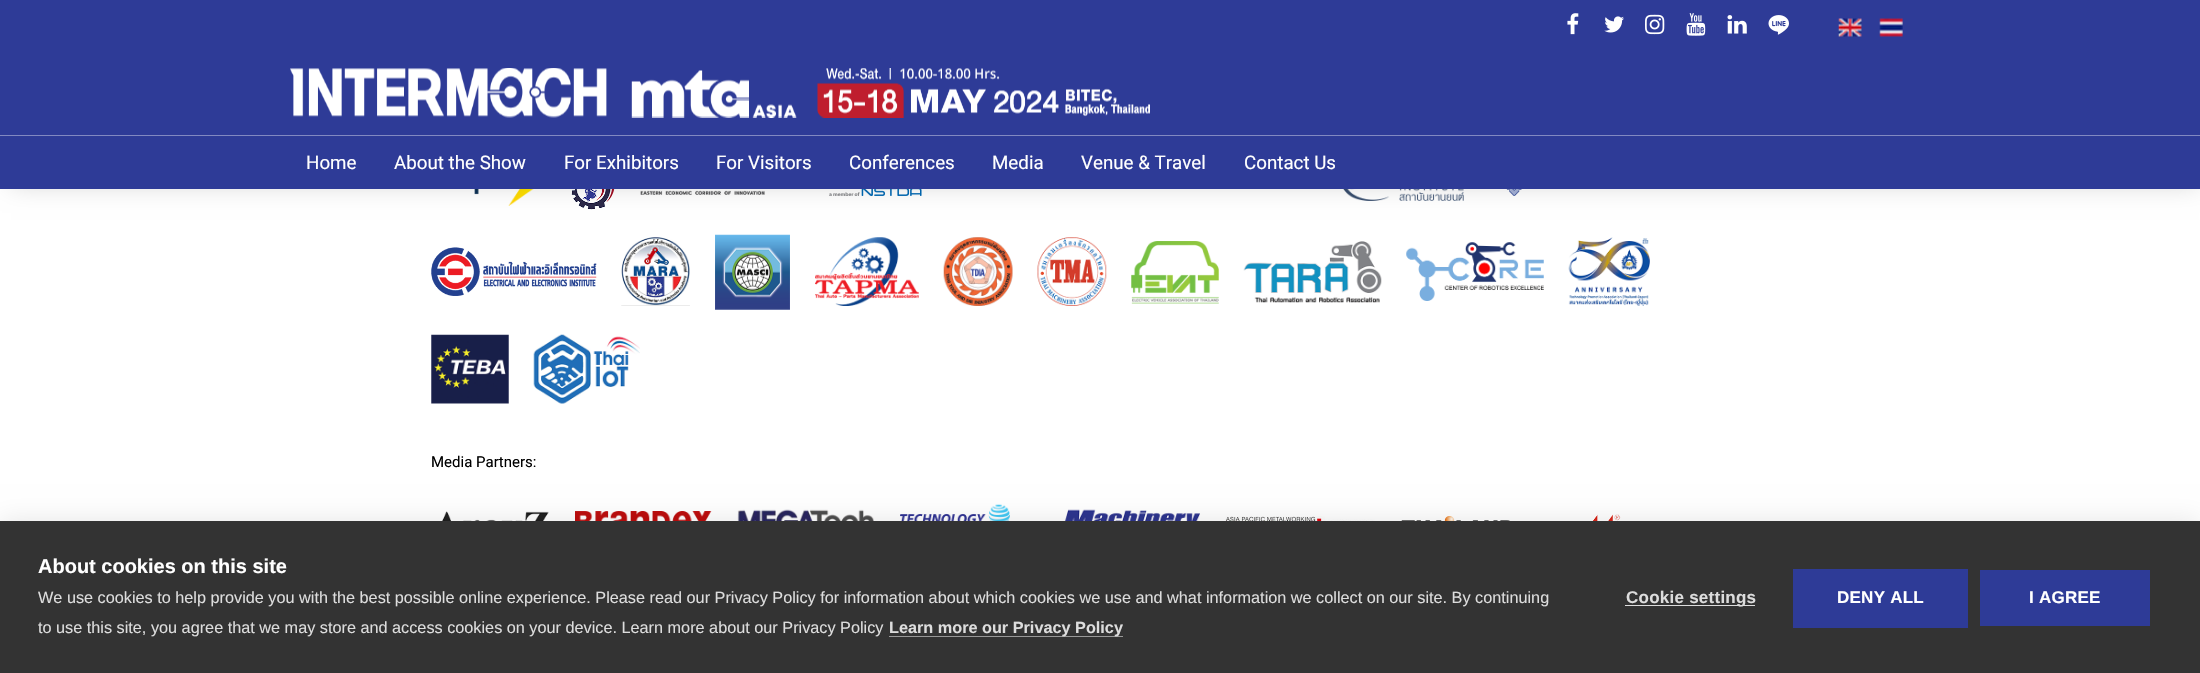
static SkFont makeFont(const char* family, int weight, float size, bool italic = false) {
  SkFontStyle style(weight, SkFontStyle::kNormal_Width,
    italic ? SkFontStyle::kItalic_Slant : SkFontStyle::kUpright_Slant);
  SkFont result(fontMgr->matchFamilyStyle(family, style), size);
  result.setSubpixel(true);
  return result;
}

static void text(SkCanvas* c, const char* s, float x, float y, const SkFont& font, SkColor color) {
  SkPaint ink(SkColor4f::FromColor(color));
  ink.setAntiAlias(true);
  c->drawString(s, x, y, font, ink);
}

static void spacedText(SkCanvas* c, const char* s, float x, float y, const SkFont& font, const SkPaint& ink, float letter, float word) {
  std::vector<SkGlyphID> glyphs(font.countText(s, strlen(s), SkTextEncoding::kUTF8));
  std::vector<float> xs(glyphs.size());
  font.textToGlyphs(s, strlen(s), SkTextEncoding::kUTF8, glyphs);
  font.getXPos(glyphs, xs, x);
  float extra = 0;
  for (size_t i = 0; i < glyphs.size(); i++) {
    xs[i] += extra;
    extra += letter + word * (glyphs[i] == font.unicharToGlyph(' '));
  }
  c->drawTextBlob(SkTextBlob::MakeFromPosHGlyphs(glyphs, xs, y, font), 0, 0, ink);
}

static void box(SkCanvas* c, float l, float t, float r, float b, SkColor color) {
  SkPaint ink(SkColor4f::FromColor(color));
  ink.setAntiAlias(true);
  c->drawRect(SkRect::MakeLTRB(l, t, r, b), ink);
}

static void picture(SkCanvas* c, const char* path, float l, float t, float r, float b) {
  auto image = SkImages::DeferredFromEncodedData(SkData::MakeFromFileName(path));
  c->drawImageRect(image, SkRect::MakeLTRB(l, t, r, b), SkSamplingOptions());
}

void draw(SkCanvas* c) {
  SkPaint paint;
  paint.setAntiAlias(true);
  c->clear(0xffffffff);
  picture(c, "img_11.png", 474, 189, 534, 206);
  picture(c, "img_12.png", 571, 189, 615, 210);
  picture(c, "img_13.png", 640, 189, 765, 195);
  picture(c, "img_14.png", 829, 189, 922, 196);
  picture(c, "img_15.png", 1343, 189, 1464, 201);
  picture(c, "img_16.png", 1506, 189, 1522, 196);
  paint.setColor(0x33000000);
  paint.setMaskFilter(SkMaskFilter::MakeBlur(kNormal_SkBlurStyle, 12.5f));
  c->drawRect(SkRect::MakeLTRB(11, 6, 2199, 183), paint);
  paint.setMaskFilter(nullptr);
  box(c, 0, 0, 2200, 189, 0xff2e3b97);
  picture(c, "img_01.png", 1567, 13, 1579, 35);
  picture(c, "img_02.png", 1604, 16, 1624, 33);
  picture(c, "img_03.png", 1645, 14, 1665, 35);
  picture(c, "img_04.png", 1686, 13, 1706, 36);
  picture(c, "img_05.png", 1727, 15, 1747, 34);
  picture(c, "img_06.png", 1768, 15, 1789, 35);
  picture(c, "img_07.png", 1838, 18, 1862, 37);
  picture(c, "img_08.png", 1879, 18, 1903, 37);
  box(c, 0, 135, 2200, 136, 0xff8289c1);
  picture(c, "img_09.png", 290, 68, 797, 118);
  picture(c, "img_10.png", 817, 68, 1150, 118);
  SkFont face1 = makeFont("Roboto", 400, 18.75f);
  text(c, "Home", 306, 169, face1, 0xffffffff);
  text(c, "About the Show", 394, 169, face1, 0xffffffff);
  text(c, "For Exhibitors", 564, 169, face1, 0xffffffff);
  text(c, "For Visitors", 716, 169, face1, 0xffffffff);
  text(c, "Conferences", 849, 169, face1, 0xffffffff);
  text(c, "Media", 992, 169, face1, 0xffffffff);
  text(c, "Venue & Travel", 1081, 169, face1, 0xffffffff);
  text(c, "Contact Us", 1244, 169, face1, 0xffffffff);
  picture(c, "img_17.png", 431, 247, 597, 296);
  picture(c, "img_18.png", 621, 237, 690, 306);
  picture(c, "img_19.png", 715, 234, 790, 310);
  picture(c, "img_20.png", 815, 237, 919, 306);
  picture(c, "img_21.png", 943, 237, 1013, 306);
  picture(c, "img_22.png", 1037, 237, 1107, 306);
  picture(c, "img_23.png", 1131, 241, 1219, 304);
  picture(c, "img_24.png", 1243, 241, 1382, 303);
  picture(c, "img_25.png", 1406, 242, 1544, 301);
  picture(c, "img_26.png", 1568, 237, 1650, 306);
  picture(c, "img_27.png", 431, 334, 509, 404);
  picture(c, "img_28.png", 533, 334, 640, 404);
  SkFont face2 = makeFont("Roboto", 400, 15);
  text(c, "Media Partners:", 431, 467, face2, 0xff000000);
  picture(c, "img_29.png", 431, 511, 550, 521);
  picture(c, "img_30.png", 575, 511, 712, 521);
  picture(c, "img_31.png", 737, 509, 874, 521);
  picture(c, "img_32.png", 900, 504, 1010, 521);
  picture(c, "img_33.png", 1062, 509, 1200, 521);
  picture(c, "img_34.png", 1225, 516, 1375, 521);
  picture(c, "img_35.png", 1400, 516, 1550, 521);
  picture(c, "img_36.png", 1593, 514, 1621, 521);
  paint.setColor(0x1a000000);
  paint.setMaskFilter(SkMaskFilter::MakeBlur(kNormal_SkBlurStyle, 12.5f));
  c->drawRect(SkRect::MakeLTRB(0, 521, 2200, 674), paint);
  paint.setMaskFilter(nullptr);
  box(c, 0, 521, 2200, 673, 0xff333333);
  SkFont face3 = makeFont("Liberation Sans", 700, 20);
  text(c, "About cookies on this site", 38, 573, face3, 0xffffffff);
  SkFont face4 = makeFont("Liberation Sans", 400, 16.25f);
  text(c, "We use cookies to help provide you with the best possible online experience. Please read our Privacy Policy for information about which cookies we use and what information we collect on our site. By continuing", 38, 603, face4, 0xffdddddd);
  text(c, "to use this site, you agree that we may store and access cookies on your device. Learn more about our Privacy Policy", 38, 633, face4, 0xffdddddd);
  box(c, 889, 636, 1123, 637, 0xff999999);
  SkFont face5 = makeFont("Liberation Sans", 700, 16.25f);
  text(c, "Learn more our Privacy Policy", 889, 633, face5, 0xffdddddd);
  box(c, 1625, 605, 1755, 606, 0xffdddddd);
  SkFont face6 = makeFont("Liberation Sans", 700, 17);
  paint.setColor(0xffdddddd);
  spacedText(c, "Cookie settings", 1626, 603, face6, paint, 0.25f, 0);
  box(c, 1793, 569, 1968, 628, 0xff2e3b97);
  paint.setColor(0xffffffff);
  spacedText(c, "DENY ALL", 1837, 603, face6, paint, 0.25f, 0);
  box(c, 1980, 570, 2150, 626, 0xff2e3b97);
  spacedText(c, "I AGREE", 2029, 603, face6, paint, 0.25f, 0);
}
